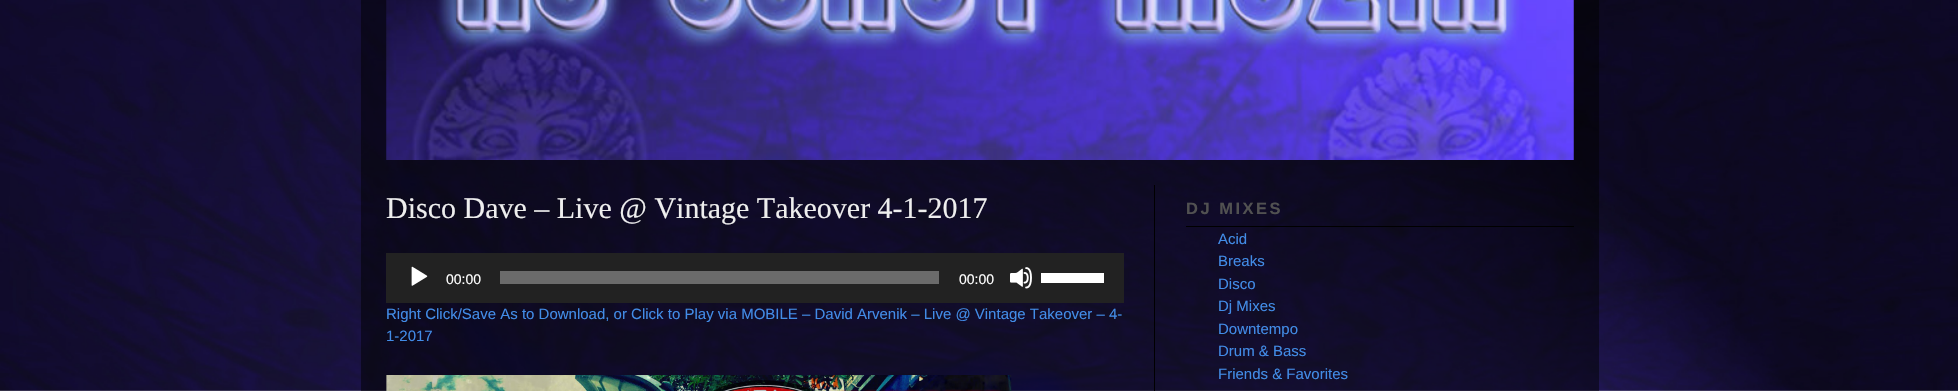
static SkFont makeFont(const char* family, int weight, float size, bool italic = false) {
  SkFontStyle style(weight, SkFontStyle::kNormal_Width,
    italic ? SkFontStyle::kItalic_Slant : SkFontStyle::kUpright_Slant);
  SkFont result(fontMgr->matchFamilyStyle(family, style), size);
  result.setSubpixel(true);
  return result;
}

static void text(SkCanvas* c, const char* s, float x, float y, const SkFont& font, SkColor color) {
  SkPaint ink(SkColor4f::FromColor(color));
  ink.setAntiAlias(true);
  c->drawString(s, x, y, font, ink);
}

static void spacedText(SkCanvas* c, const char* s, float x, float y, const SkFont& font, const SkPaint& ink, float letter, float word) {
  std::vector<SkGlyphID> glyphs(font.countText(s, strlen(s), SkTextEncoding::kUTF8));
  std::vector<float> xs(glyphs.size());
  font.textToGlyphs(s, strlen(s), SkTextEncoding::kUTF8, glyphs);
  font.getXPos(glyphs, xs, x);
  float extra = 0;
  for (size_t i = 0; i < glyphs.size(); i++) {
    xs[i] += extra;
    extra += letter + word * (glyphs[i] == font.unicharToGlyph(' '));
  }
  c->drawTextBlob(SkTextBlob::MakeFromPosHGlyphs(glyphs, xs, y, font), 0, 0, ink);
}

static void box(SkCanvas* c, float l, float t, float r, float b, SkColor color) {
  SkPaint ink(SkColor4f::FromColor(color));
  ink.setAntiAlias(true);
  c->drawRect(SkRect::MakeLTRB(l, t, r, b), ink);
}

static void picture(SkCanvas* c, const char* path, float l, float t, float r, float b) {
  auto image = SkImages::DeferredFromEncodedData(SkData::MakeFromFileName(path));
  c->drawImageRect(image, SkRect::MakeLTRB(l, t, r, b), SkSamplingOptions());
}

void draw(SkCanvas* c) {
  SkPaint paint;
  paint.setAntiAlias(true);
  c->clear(0xffffffff);
  picture(c, "img_01.png", 0, 0, 1958, 391);
  box(c, 361, 0, 1599, 391, 0x80000000);
  picture(c, "img_02.png", 386, 0, 1574, 160);
  box(c, 1154, 185, 1155, 391, 0xff000000);
  SkFont face1 = makeFont("Liberation Serif", 400, 30);
  text(c, "Disco Dave – Live @ Vintage Takeover 4-1-2017", 386, 218, face1, 0xffeeeeee);
  box(c, 386, 253, 1124, 303, 0xff222222);
  picture(c, "img_03.png", 411, 266, 428, 286);
  SkFont face2 = makeFont("Liberation Sans", 400, 14);
  text(c, "00:00", 446, 284, face2, 0xffffffff);
  box(c, 500, 271, 939, 284, 0xff6b6b6b);
  text(c, "00:00", 959, 284, face2, 0xffffffff);
  picture(c, "img_04.png", 1010, 267, 1032, 289);
  box(c, 1041, 273, 1104, 283, 0xffffffff);
  SkFont face3 = makeFont("Liberation Sans", 400, 15);
  text(c, "Right Click/Save As to Download, or Click to Play via MOBILE – David Arvenik – Live @ Vintage Takeover – 4-", 386, 319, face3, 0xff428ce7);
  text(c, "1-2017", 386, 341, face3, 0xff428ce7);
  picture(c, "img_05.png", 386, 375, 1012, 391);
  box(c, 1186, 226, 1574, 227, 0xff000000);
  SkFont face4 = makeFont("Liberation Sans", 700, 16.5f);
  paint.setColor(0xff515151);
  spacedText(c, "DJ MIXES", 1186, 214, face4, paint, 2.5f, 0);
  text(c, "Acid", 1218, 244, face3, 0xff428ce7);
  text(c, "Breaks", 1218, 266, face3, 0xff428ce7);
  text(c, "Disco", 1218, 289, face3, 0xff428ce7);
  text(c, "Dj Mixes", 1218, 311, face3, 0xff428ce7);
  text(c, "Downtempo", 1218, 334, face3, 0xff428ce7);
  text(c, "Drum & Bass", 1218, 356, face3, 0xff428ce7);
  text(c, "Friends & Favorites", 1218, 379, face3, 0xff428ce7);
}
